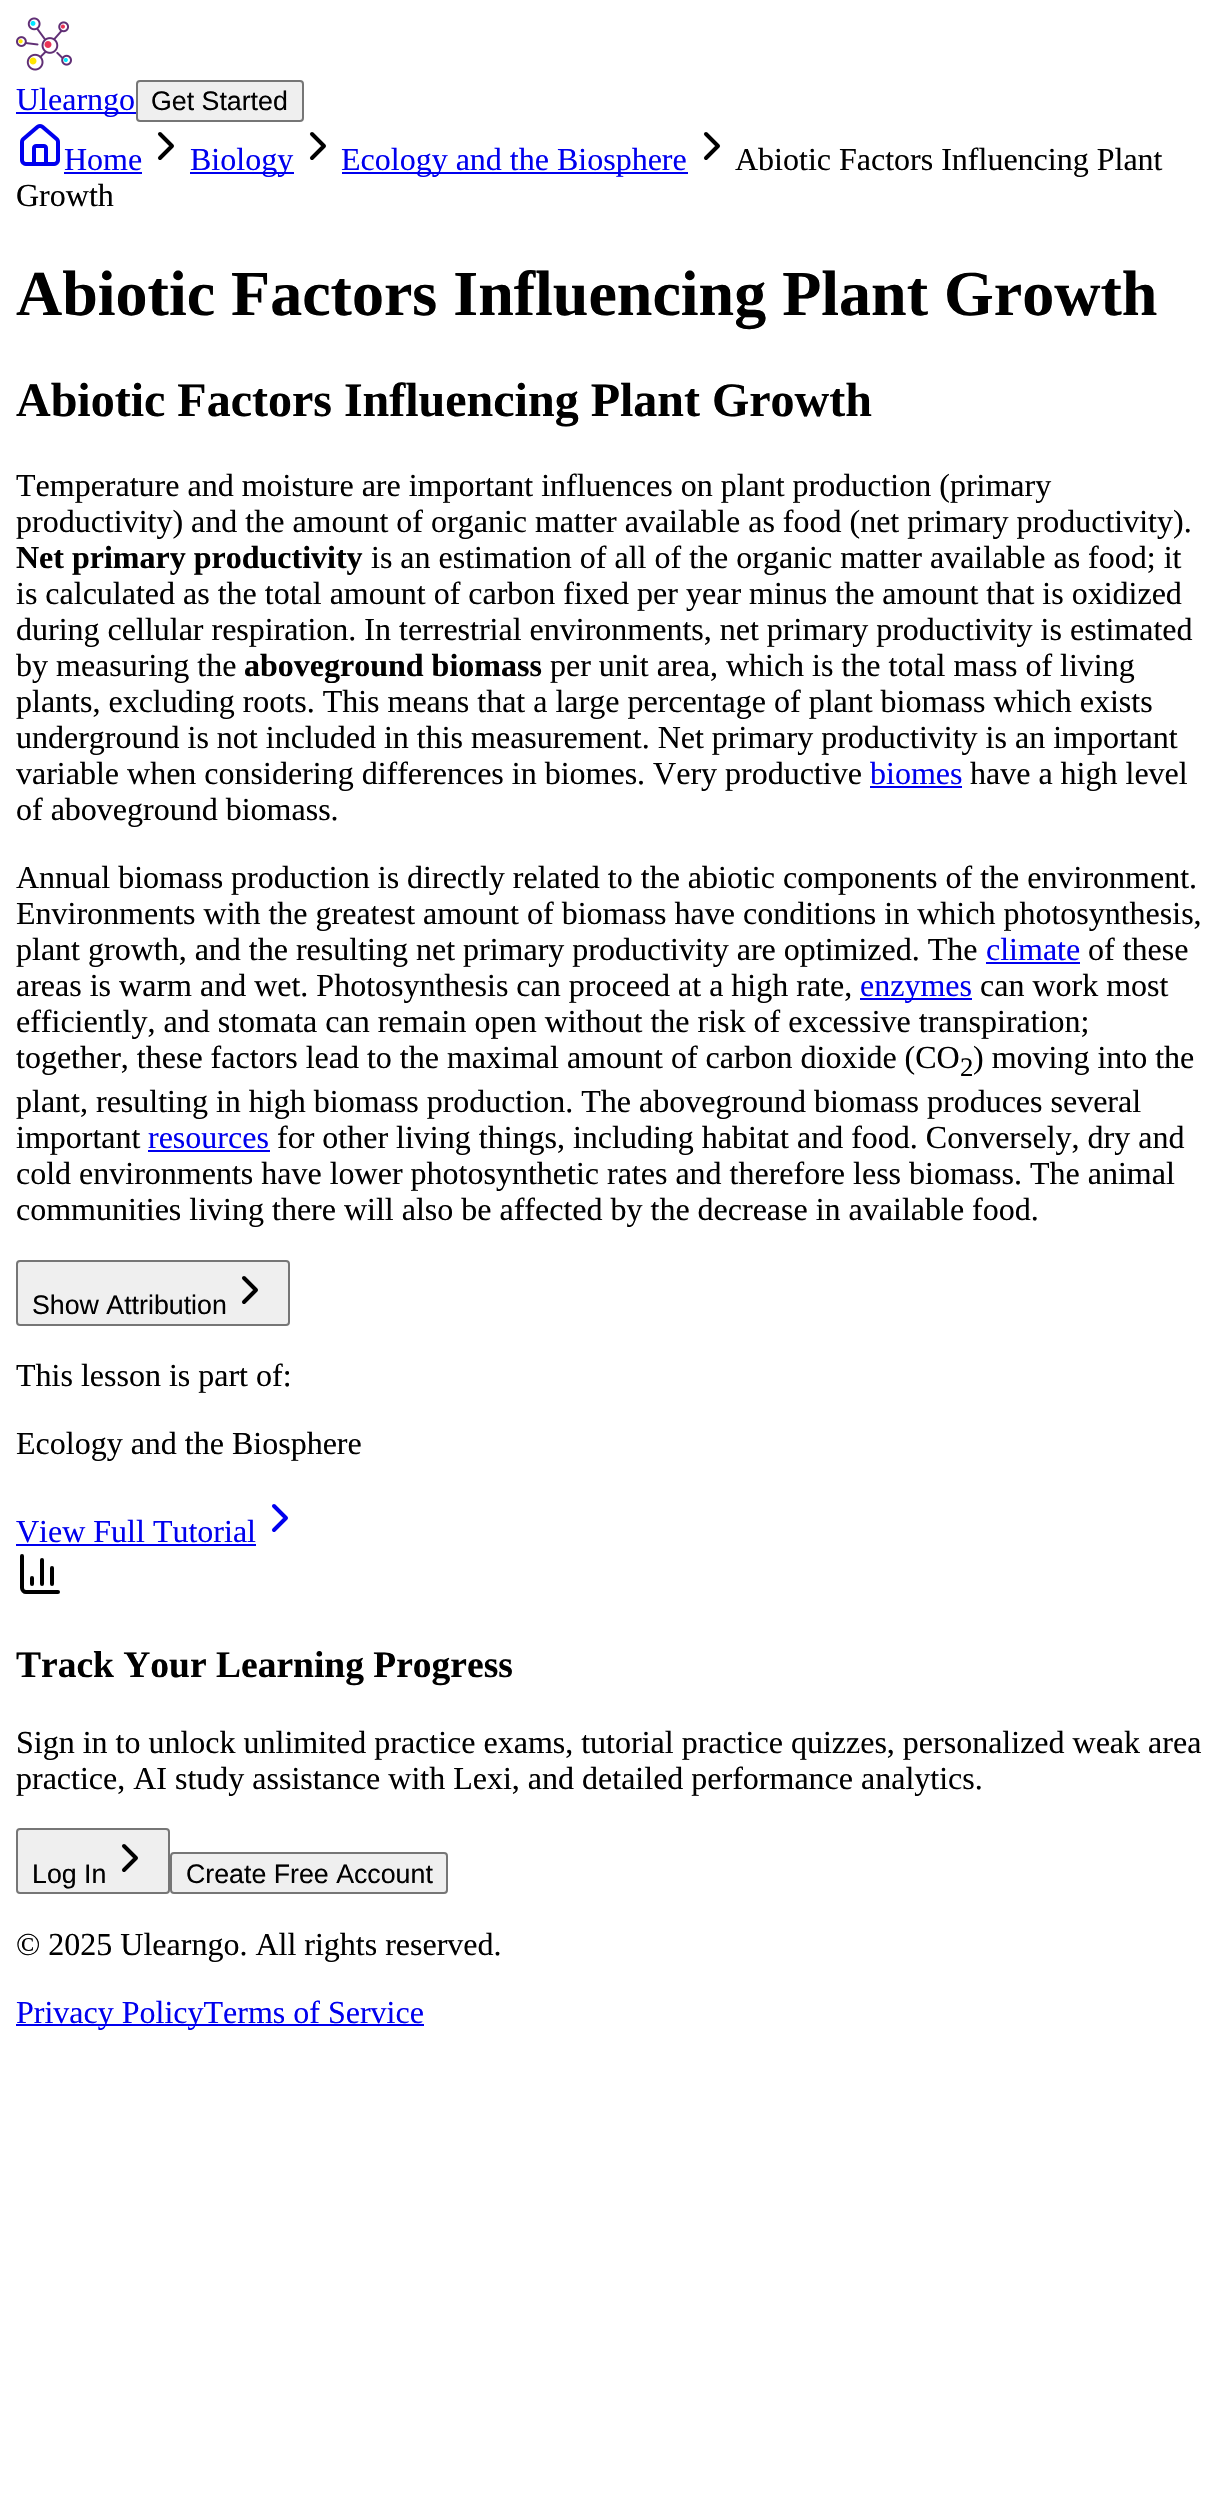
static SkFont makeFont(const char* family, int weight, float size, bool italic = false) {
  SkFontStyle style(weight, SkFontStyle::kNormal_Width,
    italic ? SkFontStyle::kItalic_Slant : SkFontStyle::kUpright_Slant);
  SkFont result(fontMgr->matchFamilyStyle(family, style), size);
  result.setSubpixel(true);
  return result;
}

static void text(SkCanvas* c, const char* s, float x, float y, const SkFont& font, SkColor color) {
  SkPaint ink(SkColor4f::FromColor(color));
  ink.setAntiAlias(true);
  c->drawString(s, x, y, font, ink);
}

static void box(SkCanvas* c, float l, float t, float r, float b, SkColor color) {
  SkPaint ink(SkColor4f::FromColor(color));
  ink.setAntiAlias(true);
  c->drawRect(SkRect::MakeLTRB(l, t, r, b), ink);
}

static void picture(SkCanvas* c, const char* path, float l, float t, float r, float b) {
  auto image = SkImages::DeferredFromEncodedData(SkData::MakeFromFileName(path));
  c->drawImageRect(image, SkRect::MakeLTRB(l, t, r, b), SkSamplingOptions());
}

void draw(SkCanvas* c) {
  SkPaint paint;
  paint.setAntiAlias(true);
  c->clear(0xffffffff);
  picture(c, "img_01.png", 16, 17, 72, 71);
  box(c, 16, 112, 136, 114, 0xff0000ee);
  SkFont face1 = makeFont("Liberation Serif", 400, 32);
  text(c, "Ulearngo", 16, 110, face1, 0xff0000ee);
  paint.setColor(0xffefefef);
  c->drawRoundRect(SkRect::MakeLTRB(137, 81, 303, 121), 3, 3, paint);
  paint.setStyle(SkPaint::kStroke_Style);
  paint.setStrokeWidth(2);
  paint.setColor(0xff767676);
  c->drawRoundRect(SkRect::MakeLTRB(137, 81, 303, 121), 3, 3, paint);
  SkFont face2 = makeFont("Liberation Sans", 400, 26.75f);
  text(c, "Get Started", 151, 110, face2, 0xff000000);
  picture(c, "img_02.png", 20, 124, 60, 166);
  text(c, "Home", 64, 170, face1, 0xff0000ee);
  box(c, 64, 172, 142, 174, 0xff0000ee);
  paint.setStrokeWidth(4);
  paint.setStrokeCap(SkPaint::kRound_Cap);
  paint.setStrokeJoin(SkPaint::kRound_Join);
  paint.setColor(0xff000000);
  c->drawPath(SkPathBuilder().moveTo(160, 158).lineTo(172, 146).lineTo(160, 134).detach(), paint);
  box(c, 190, 172, 294, 174, 0xff0000ee);
  text(c, "Biology", 190, 170, face1, 0xff0000ee);
  c->drawPath(SkPathBuilder().moveTo(312, 158).lineTo(324, 146).lineTo(312, 134).detach(), paint);
  box(c, 342, 172, 688, 174, 0xff0000ee);
  text(c, "Ecology and the Biosphere", 341, 170, face1, 0xff0000ee);
  c->drawPath(SkPathBuilder().moveTo(706, 158).lineTo(718, 146).lineTo(706, 134).detach(), paint);
  text(c, "Abiotic Factors Influencing Plant", 735, 170, face1, 0xff000000);
  text(c, "Growth", 16, 206, face1, 0xff000000);
  SkFont face3 = makeFont("Liberation Serif", 700, 64);
  text(c, "Abiotic Factors Influencing Plant Growth", 16, 315, face3, 0xff000000);
  SkFont face4 = makeFont("Liberation Serif", 700, 48);
  text(c, "Abiotic Factors Influencing Plant Growth", 16, 416, face4, 0xff000000);
  text(c, "Temperature and moisture are important influences on plant production (primary", 16, 496, face1, 0xff000000);
  text(c, "productivity) and the amount of organic matter available as food (net primary productivity).", 16, 532, face1, 0xff000000);
  SkFont face5 = makeFont("Liberation Serif", 700, 32);
  text(c, "Net primary productivity", 16, 568, face5, 0xff000000);
  text(c, "is an estimation of all of the organic matter available as food; it", 371, 568, face1, 0xff000000);
  text(c, "is calculated as the total amount of carbon fixed per year minus the amount that is oxidized", 16, 604, face1, 0xff000000);
  text(c, "during cellular respiration. In terrestrial environments, net primary productivity is estimated", 16, 640, face1, 0xff000000);
  text(c, "by measuring the", 16, 676, face1, 0xff000000);
  text(c, "aboveground biomass", 244, 676, face5, 0xff000000);
  text(c, "per unit area, which is the total mass of living", 550, 676, face1, 0xff000000);
  text(c, "plants, excluding roots. This means that a large percentage of plant biomass which exists", 16, 712, face1, 0xff000000);
  text(c, "underground is not included in this measurement. Net primary productivity is an important", 16, 748, face1, 0xff000000);
  text(c, "variable when considering differences in biomes. Very productive", 16, 784, face1, 0xff000000);
  text(c, "biomes", 870, 784, face1, 0xff0000ee);
  box(c, 870, 786, 962, 788, 0xff0000ee);
  text(c, "have a high level", 970, 784, face1, 0xff000000);
  text(c, "of aboveground biomass.", 16, 820, face1, 0xff000000);
  text(c, "Annual biomass production is directly related to the abiotic components of the environment.", 16, 888, face1, 0xff000000);
  text(c, "Environments with the greatest amount of biomass have conditions in which photosynthesis,", 16, 924, face1, 0xff000000);
  text(c, "plant growth, and the resulting net primary productivity are optimized. The", 16, 960, face1, 0xff000000);
  text(c, "climate", 986, 960, face1, 0xff0000ee);
  box(c, 986, 962, 1080, 964, 0xff0000ee);
  text(c, "of these", 1088, 960, face1, 0xff000000);
  text(c, "areas is warm and wet. Photosynthesis can proceed at a high rate,", 16, 996, face1, 0xff000000);
  box(c, 860, 998, 972, 1000, 0xff0000ee);
  text(c, "enzymes", 860, 996, face1, 0xff0000ee);
  text(c, "can work most", 980, 996, face1, 0xff000000);
  text(c, "efficiently, and stomata can remain open without the risk of excessive transpiration;", 16, 1032, face1, 0xff000000);
  text(c, "together, these factors lead to the maximal amount of carbon dioxide (CO", 16, 1068, face1, 0xff000000);
  SkFont face6 = makeFont("Liberation Serif", 400, 26.75f);
  text(c, "2", 960, 1076, face6, 0xff000000);
  text(c, ") moving into the", 973, 1068, face1, 0xff000000);
  text(c, "plant, resulting in high biomass production. The aboveground biomass produces several", 16, 1112, face1, 0xff000000);
  text(c, "important", 16, 1148, face1, 0xff000000);
  text(c, "resources", 148, 1148, face1, 0xff0000ee);
  box(c, 148, 1150, 270, 1152, 0xff0000ee);
  text(c, "for other living things, including habitat and food. Conversely, dry and", 277, 1148, face1, 0xff000000);
  text(c, "cold environments have lower photosynthetic rates and therefore less biomass. The animal", 16, 1184, face1, 0xff000000);
  text(c, "communities living there will also be affected by the decrease in available food.", 16, 1220, face1, 0xff000000);
  paint.setStyle(SkPaint::kFill_Style);
  paint.setColor(0xffefefef);
  c->drawRoundRect(SkRect::MakeLTRB(17, 1261, 289, 1325), 3, 3, paint);
  paint.setStyle(SkPaint::kStroke_Style);
  paint.setStrokeWidth(2);
  paint.setStrokeCap(SkPaint::kButt_Cap);
  paint.setStrokeJoin(SkPaint::kMiter_Join);
  paint.setColor(0xff767676);
  c->drawRoundRect(SkRect::MakeLTRB(17, 1261, 289, 1325), 3, 3, paint);
  text(c, "Show Attribution", 32, 1314, face2, 0xff000000);
  paint.setStrokeWidth(4);
  paint.setStrokeCap(SkPaint::kRound_Cap);
  paint.setStrokeJoin(SkPaint::kRound_Join);
  paint.setColor(0xff000000);
  c->drawPath(SkPathBuilder().moveTo(244, 1302).lineTo(256, 1290).lineTo(244, 1278).detach(), paint);
  text(c, "This lesson is part of:", 16, 1386, face1, 0xff000000);
  text(c, "Ecology and the Biosphere", 16, 1454, face1, 0xff000000);
  text(c, "View Full Tutorial", 16, 1542, face1, 0xff0000ee);
  box(c, 16, 1544, 256, 1546, 0xff0000ee);
  paint.setColor(0xff0000ee);
  c->drawPath(SkPathBuilder().moveTo(274, 1530).lineTo(286, 1518).lineTo(274, 1506).detach(), paint);
  paint.setColor(0xff000000);
  c->drawPath(SkPathBuilder().moveTo(22, 1556).lineTo(22, 1588).cubicTo(22, 1590, 24, 1592, 26, 1592).lineTo(58, 1592).moveTo(52, 1584).lineTo(52, 1568).moveTo(42, 1584).lineTo(42, 1560).moveTo(32, 1584).lineTo(32, 1578).detach(), paint);
  SkFont face7 = makeFont("Liberation Serif", 700, 37.5f);
  text(c, "Track Your Learning Progress", 16, 1677, face7, 0xff000000);
  text(c, "Sign in to unlock unlimited practice exams, tutorial practice quizzes, personalized weak area", 16, 1753, face1, 0xff000000);
  text(c, "practice, AI study assistance with Lexi, and detailed performance analytics.", 16, 1789, face1, 0xff000000);
  paint.setStyle(SkPaint::kFill_Style);
  paint.setColor(0xffefefef);
  c->drawRoundRect(SkRect::MakeLTRB(17, 1829, 169, 1893), 3, 3, paint);
  paint.setStyle(SkPaint::kStroke_Style);
  paint.setStrokeWidth(2);
  paint.setStrokeCap(SkPaint::kButt_Cap);
  paint.setStrokeJoin(SkPaint::kMiter_Join);
  paint.setColor(0xff767676);
  c->drawRoundRect(SkRect::MakeLTRB(17, 1829, 169, 1893), 3, 3, paint);
  paint.setStrokeWidth(4);
  paint.setStrokeCap(SkPaint::kRound_Cap);
  paint.setStrokeJoin(SkPaint::kRound_Join);
  paint.setColor(0xff000000);
  c->drawPath(SkPathBuilder().moveTo(124, 1870).lineTo(136, 1858).lineTo(124, 1846).detach(), paint);
  text(c, "Log In", 32, 1883, face2, 0xff000000);
  paint.setStyle(SkPaint::kFill_Style);
  paint.setColor(0xffefefef);
  c->drawRoundRect(SkRect::MakeLTRB(171, 1853, 447, 1893), 3, 3, paint);
  paint.setStyle(SkPaint::kStroke_Style);
  paint.setStrokeWidth(2);
  paint.setStrokeCap(SkPaint::kButt_Cap);
  paint.setStrokeJoin(SkPaint::kMiter_Join);
  paint.setColor(0xff767676);
  c->drawRoundRect(SkRect::MakeLTRB(171, 1853, 447, 1893), 3, 3, paint);
  text(c, "Create Free Account", 186, 1883, face2, 0xff000000);
  text(c, "© 2025 Ulearngo. All rights reserved.", 16, 1955, face1, 0xff000000);
  box(c, 16, 2024, 424, 2026, 0xff0000ee);
  text(c, "Privacy PolicyTerms of Service", 16, 2023, face1, 0xff0000ee);
}
